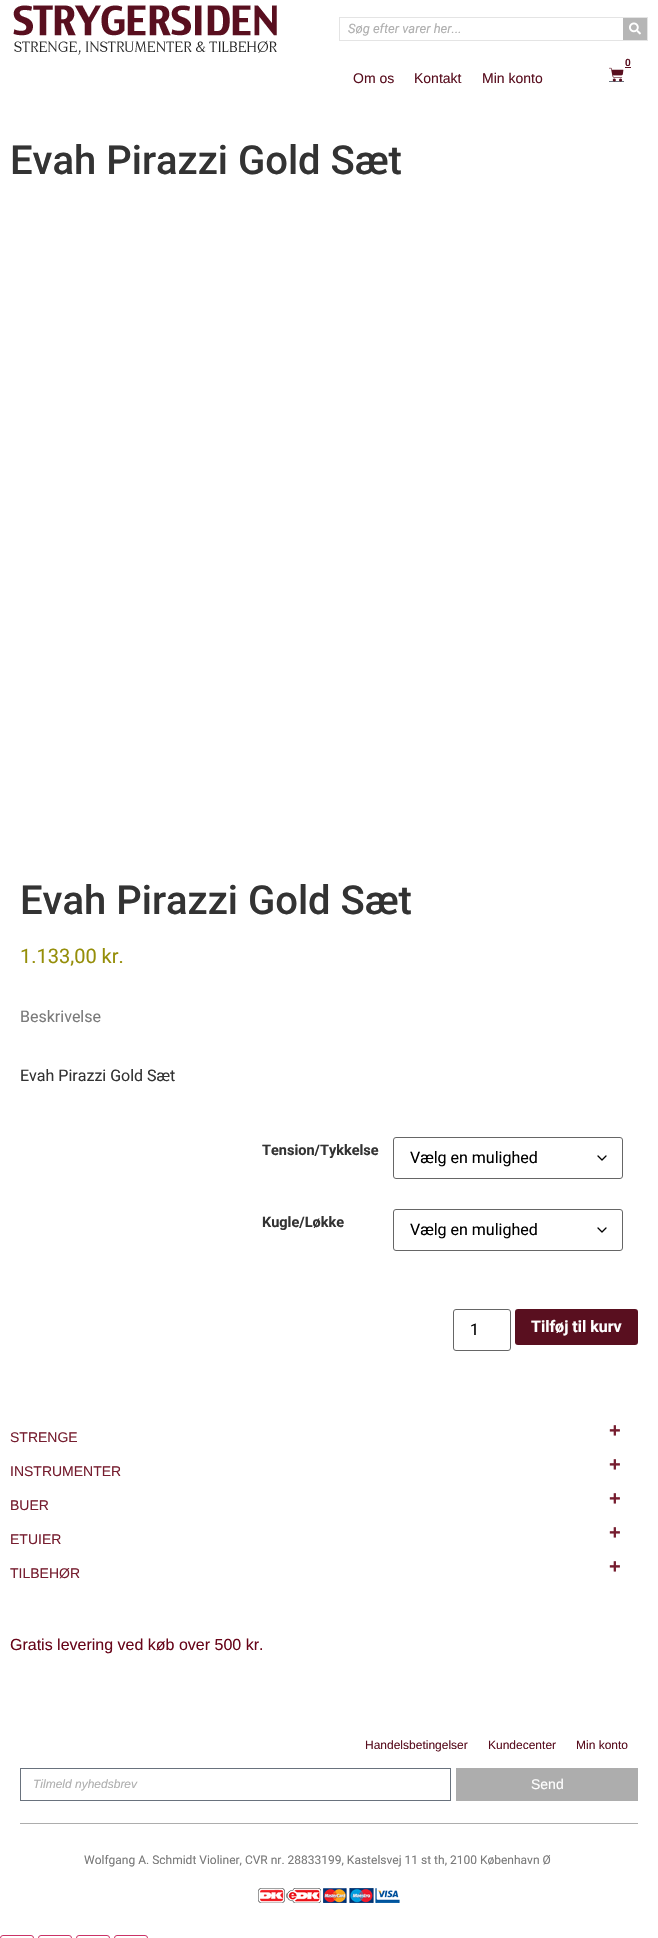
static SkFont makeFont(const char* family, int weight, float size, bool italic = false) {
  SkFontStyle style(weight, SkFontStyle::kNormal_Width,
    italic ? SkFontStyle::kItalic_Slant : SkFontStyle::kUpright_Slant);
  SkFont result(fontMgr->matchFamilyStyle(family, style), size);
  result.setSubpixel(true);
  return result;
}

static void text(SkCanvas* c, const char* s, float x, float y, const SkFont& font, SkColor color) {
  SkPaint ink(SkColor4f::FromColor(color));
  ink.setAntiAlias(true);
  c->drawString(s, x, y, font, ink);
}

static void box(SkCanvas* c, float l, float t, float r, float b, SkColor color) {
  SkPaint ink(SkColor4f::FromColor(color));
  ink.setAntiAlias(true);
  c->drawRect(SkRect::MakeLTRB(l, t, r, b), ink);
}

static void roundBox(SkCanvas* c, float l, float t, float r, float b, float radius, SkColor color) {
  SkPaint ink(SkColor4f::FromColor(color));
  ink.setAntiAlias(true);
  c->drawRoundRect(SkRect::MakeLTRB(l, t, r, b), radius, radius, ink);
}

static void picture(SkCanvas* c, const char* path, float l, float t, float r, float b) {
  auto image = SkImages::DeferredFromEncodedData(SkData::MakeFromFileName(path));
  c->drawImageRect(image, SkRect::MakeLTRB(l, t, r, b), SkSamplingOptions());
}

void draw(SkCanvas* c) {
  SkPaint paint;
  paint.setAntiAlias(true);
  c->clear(0xffffffff);
  picture(c, "img_01.png", 13, 5, 277, 55);
  paint.setStyle(SkPaint::kStroke_Style);
  paint.setStrokeWidth(1);
  paint.setColor(0xffe4e4e4);
  c->drawRect(SkRect::MakeLTRB(339.5f, 17.5f, 647.5f, 40.5f), paint);
  SkFont face1 = makeFont("Roboto", 400, 13, true);
  text(c, "Søg efter varer her...", 348, 33, face1, 0xffafafaf);
  box(c, 623, 18, 647, 40, 0xffb6b6b6);
  picture(c, "img_02.png", 629, 22, 641, 35);
  SkFont face2 = makeFont("Roboto", 600, 10);
  text(c, "0", 625, 66, face2, 0xff590f1f);
  box(c, 625, 67, 631, 68, 0xff590f1f);
  box(c, 609, 81, 624, 82, 0xff69727d);
  picture(c, "img_03.png", 609, 67, 624, 82);
  SkFont face3 = makeFont("Liberation Sans", 400, 14);
  text(c, "Om os", 353, 83, face3, 0xff590f1f);
  text(c, "Kontakt", 414, 83, face3, 0xff590f1f);
  text(c, "Min konto", 482, 83, face3, 0xff590f1f);
  SkFont face4 = makeFont("Roboto", 500, 40);
  text(c, "Evah Pirazzi Gold Sæt", 10, 174, face4, 0xff333333);
  text(c, "Evah Pirazzi Gold Sæt", 20, 914, face4, 0xff333333);
  SkFont face5 = makeFont("Roboto", 400, 20);
  text(c, "1.133,00 kr.", 20, 963, face5, 0xff958e09);
  SkFont face6 = makeFont("Roboto", 400, 16);
  text(c, "Beskrivelse", 20, 1022, face6, 0xff7a7a7a);
  text(c, "Evah Pirazzi Gold Sæt", 20, 1081, face6, 0xff333333);
  SkFont face7 = makeFont("Roboto", 700, 14.5f);
  text(c, "Tension/Tykkelse", 262, 1155, face7, 0xff333333);
  paint.setStrokeWidth(1.3f);
  paint.setStrokeCap(SkPaint::kRound_Cap);
  paint.setStrokeJoin(SkPaint::kRound_Join);
  paint.setColor(0xff000000);
  c->drawPath(SkPathBuilder().moveTo(598, 1156).lineTo(602, 1160).lineTo(606, 1156).detach(), paint);
  paint.setStrokeWidth(1);
  paint.setStrokeCap(SkPaint::kButt_Cap);
  paint.setStrokeJoin(SkPaint::kMiter_Join);
  paint.setColor(0xff666666);
  c->drawRoundRect(SkRect::MakeLTRB(393.5f, 1137.5f, 622.5f, 1178.5f), 2.5f, 2.5f, paint);
  text(c, "Vælg en mulighed", 410, 1163, face6, 0xff000000);
  text(c, "Kugle/Løkke", 262, 1227, face7, 0xff333333);
  paint.setStrokeWidth(1.3f);
  paint.setStrokeCap(SkPaint::kRound_Cap);
  paint.setStrokeJoin(SkPaint::kRound_Join);
  paint.setColor(0xff000000);
  c->drawPath(SkPathBuilder().moveTo(598, 1228).lineTo(602, 1232).lineTo(606, 1228).detach(), paint);
  paint.setStrokeWidth(1);
  paint.setStrokeCap(SkPaint::kButt_Cap);
  paint.setStrokeJoin(SkPaint::kMiter_Join);
  paint.setColor(0xff666666);
  c->drawRoundRect(SkRect::MakeLTRB(393.5f, 1209.5f, 622.5f, 1250.5f), 2.5f, 2.5f, paint);
  text(c, "Vælg en mulighed", 410, 1235, face6, 0xff000000);
  c->drawRoundRect(SkRect::MakeLTRB(453.5f, 1309.5f, 510.5f, 1350.5f), 2.5f, 2.5f, paint);
  text(c, "1", 470, 1335, face6, 0xff000000);
  roundBox(c, 515, 1309, 638, 1345, 3, 0xff590f1f);
  SkFont face8 = makeFont("Roboto", 700, 16);
  text(c, "Tilføj til kurv", 531, 1332, face8, 0xffffffff);
  SkFont face9 = makeFont("Liberation Sans", 700, 20);
  text(c, "+", 609, 1437, face9, 0xff761d2f);
  text(c, "STRENGE", 10, 1442, face3, 0xff761d2f);
  text(c, "+", 609, 1471, face9, 0xff761d2f);
  text(c, "INSTRUMENTER", 10, 1476, face3, 0xff761d2f);
  text(c, "+", 609, 1505, face9, 0xff761d2f);
  text(c, "BUER", 10, 1510, face3, 0xff761d2f);
  text(c, "+", 609, 1539, face9, 0xff761d2f);
  text(c, "ETUIER", 10, 1544, face3, 0xff761d2f);
  text(c, "+", 609, 1573, face9, 0xff761d2f);
  text(c, "TILBEHØR", 10, 1578, face3, 0xff761d2f);
  SkFont face10 = makeFont("Liberation Sans", 400, 16);
  text(c, "Gratis levering ved køb over 500 kr.", 10, 1650, face10, 0xff68061a);
  SkFont face11 = makeFont("Liberation Sans", 400, 12);
  text(c, "Handelsbetingelser", 365, 1749, face11, 0xff590f1f);
  text(c, "Kundecenter", 488, 1749, face11, 0xff590f1f);
  text(c, "Min konto", 576, 1749, face11, 0xff590f1f);
  paint.setColor(0xff69727d);
  c->drawRect(SkRect::MakeLTRB(20.5f, 1768.5f, 450.5f, 1800.5f), paint);
  SkFont face12 = makeFont("Liberation Sans", 400, 12, true);
  text(c, "Tilmeld nyhedsbrev", 33, 1788, face12, 0xffafafaf);
  box(c, 456, 1768, 638, 1801, 0xffadadad);
  text(c, "Send", 531, 1789, face3, 0xffffffff);
  box(c, 20, 1823, 638, 1824, 0xffadadad);
  SkFont face13 = makeFont("Roboto", 400, 12);
  text(c, "Wolfgang A. Schmidt Violiner, CVR nr. 28833199, Kastelsvej 11 st th, 2100 København Ø", 84, 1864, face13, 0xff7a7a7a);
  picture(c, "img_04.png", 258, 1888, 400, 1903);
  paint.setColor(0xffcc3366);
  c->drawRoundRect(SkRect::MakeLTRB(0.5f, 1935.5f, 33.5f, 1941.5f), 2.5f, 2.5f, paint);
  c->drawRoundRect(SkRect::MakeLTRB(38.5f, 1935.5f, 71.5f, 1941.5f), 2.5f, 2.5f, paint);
  c->drawRoundRect(SkRect::MakeLTRB(76.5f, 1935.5f, 109.5f, 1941.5f), 2.5f, 2.5f, paint);
  c->drawRoundRect(SkRect::MakeLTRB(114.5f, 1935.5f, 147.5f, 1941.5f), 2.5f, 2.5f, paint);
}
